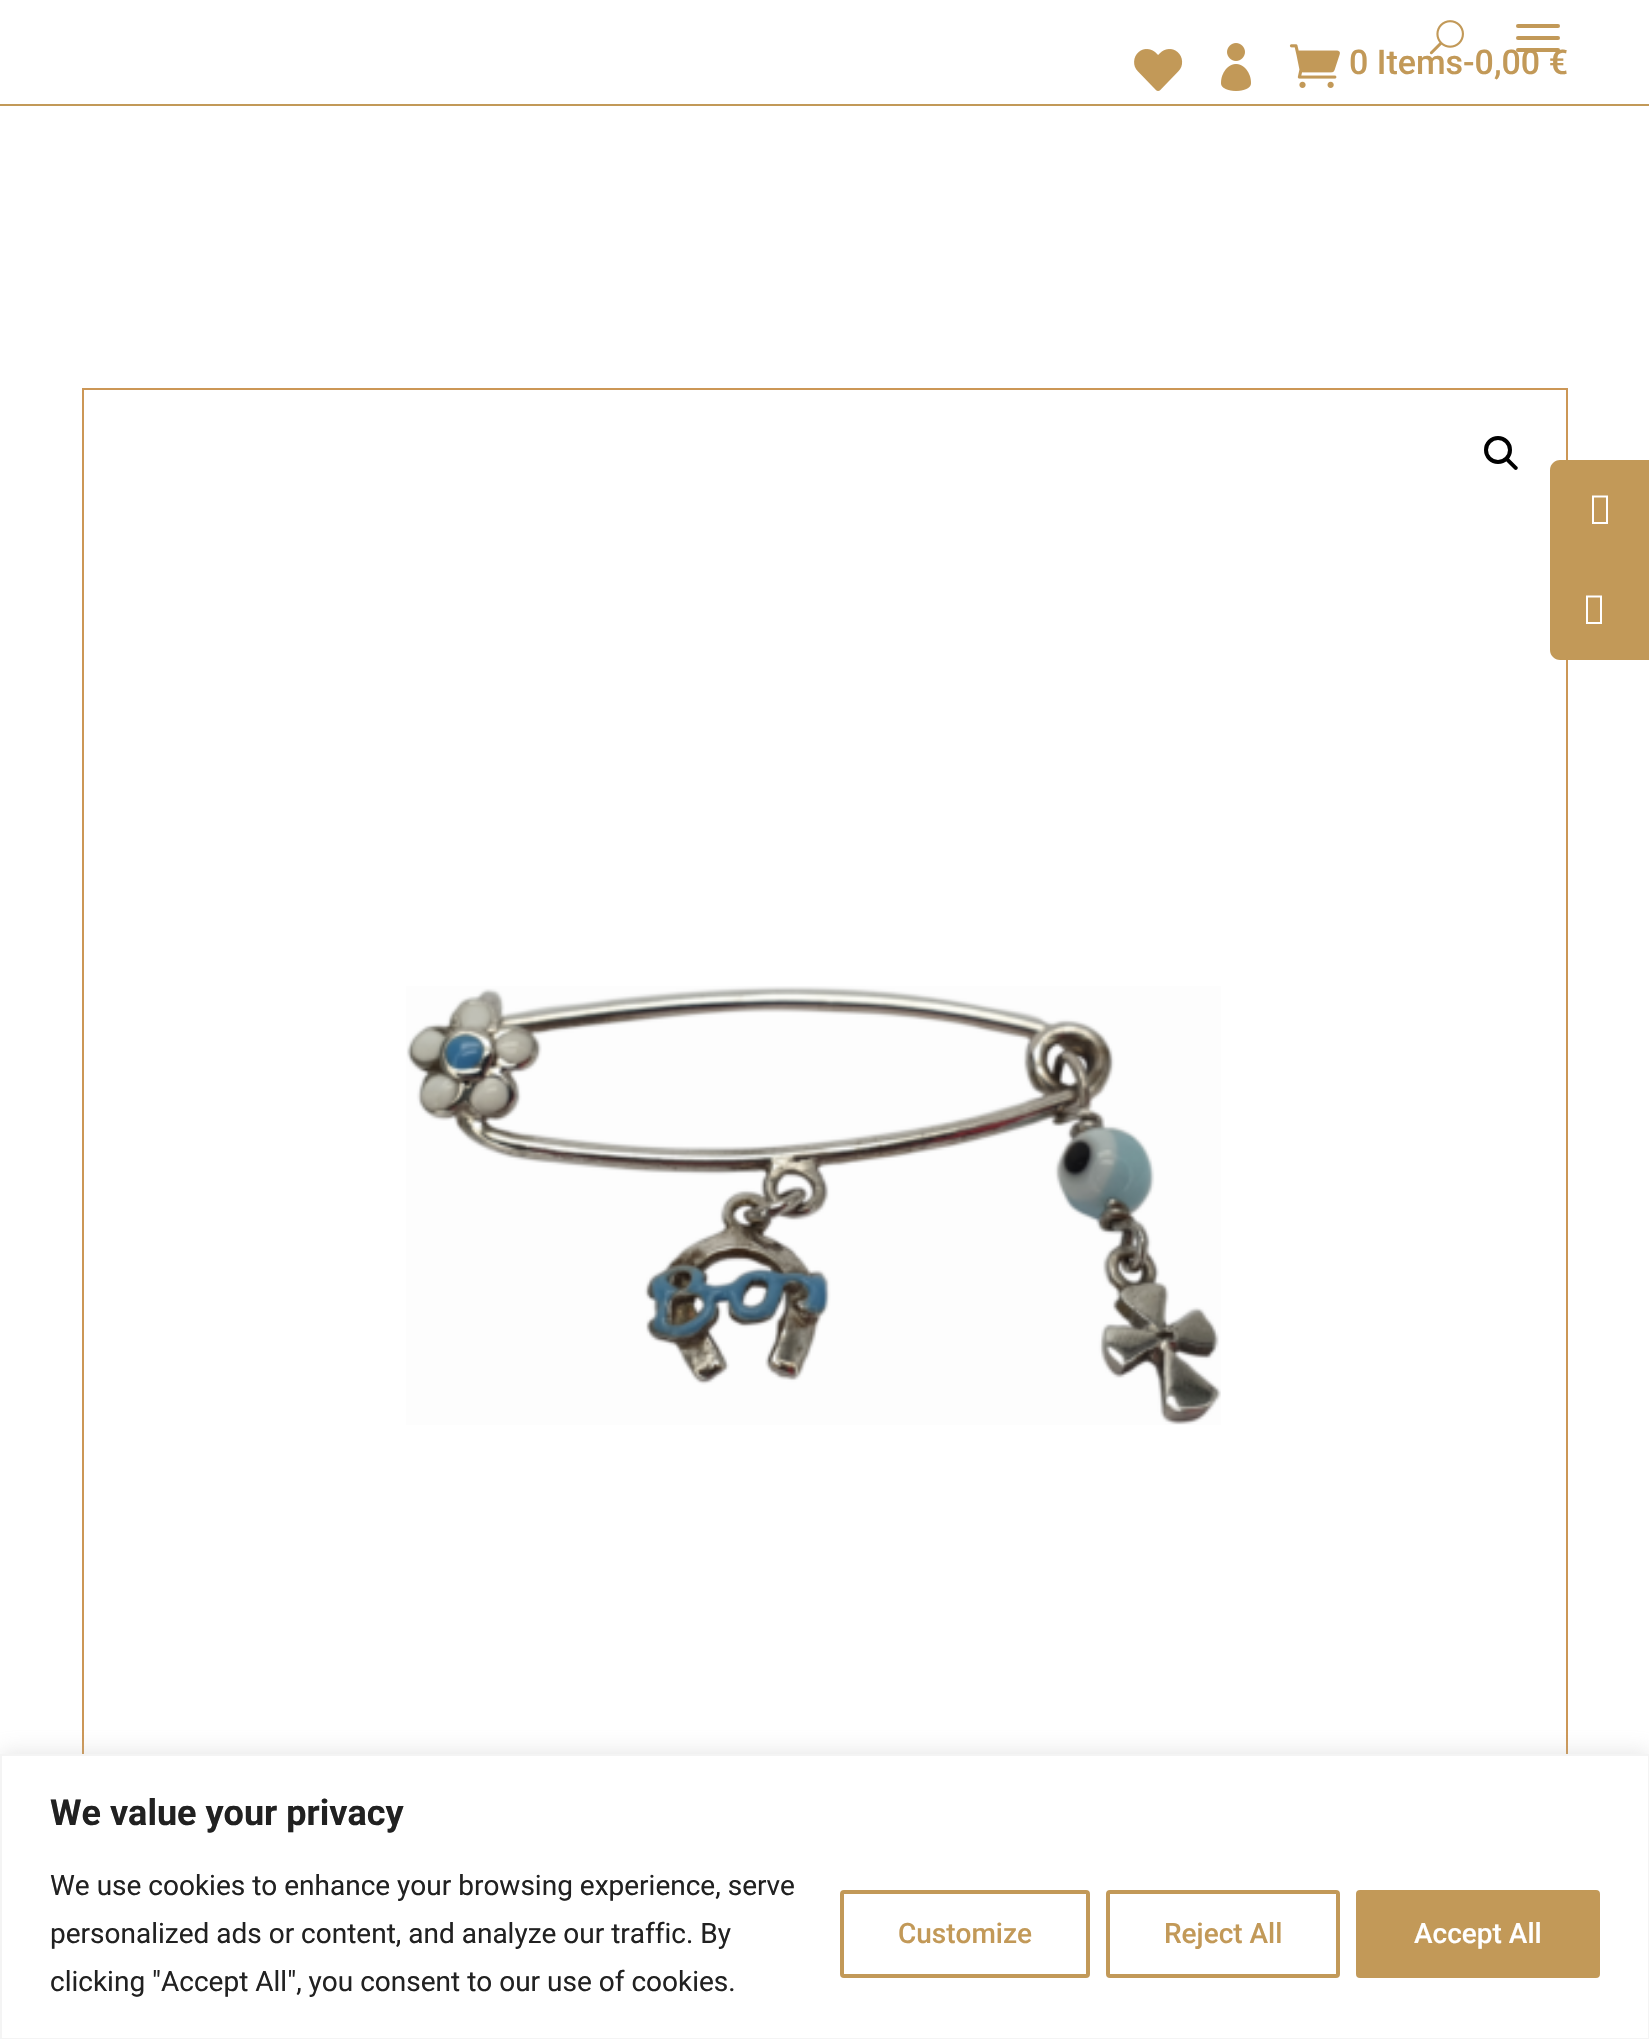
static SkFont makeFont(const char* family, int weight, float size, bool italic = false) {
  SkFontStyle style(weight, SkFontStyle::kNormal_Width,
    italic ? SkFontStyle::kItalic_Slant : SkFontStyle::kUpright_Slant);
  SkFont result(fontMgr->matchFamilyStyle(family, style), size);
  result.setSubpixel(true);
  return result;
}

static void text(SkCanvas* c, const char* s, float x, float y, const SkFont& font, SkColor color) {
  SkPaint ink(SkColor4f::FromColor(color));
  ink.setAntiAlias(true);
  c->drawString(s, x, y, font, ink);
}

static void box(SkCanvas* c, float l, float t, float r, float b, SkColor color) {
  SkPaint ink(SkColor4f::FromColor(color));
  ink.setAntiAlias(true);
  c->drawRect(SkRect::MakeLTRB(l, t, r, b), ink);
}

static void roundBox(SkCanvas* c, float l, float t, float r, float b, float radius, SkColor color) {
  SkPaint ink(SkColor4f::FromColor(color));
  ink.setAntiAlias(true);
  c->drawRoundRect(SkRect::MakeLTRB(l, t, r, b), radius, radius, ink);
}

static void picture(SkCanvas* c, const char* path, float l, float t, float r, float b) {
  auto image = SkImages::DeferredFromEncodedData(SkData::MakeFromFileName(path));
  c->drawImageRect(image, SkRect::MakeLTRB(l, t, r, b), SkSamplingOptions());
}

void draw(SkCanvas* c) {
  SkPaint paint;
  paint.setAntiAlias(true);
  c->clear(0xffffffff);
  box(c, 0, 104, 1649, 106, 0xffc29958);
  SkFont face1 = makeFont("Roboto", 500, 34);
  text(c, "0 Items-0,00 €", 1349, 74, face1, 0xffc29958);
  picture(c, "img_01.png", 1429, 20, 1464, 55);
  roundBox(c, 1516, 24, 1560, 28, 2, 0xffc29958);
  roundBox(c, 1516, 36, 1560, 40, 2, 0xffc29958);
  roundBox(c, 1516, 48, 1560, 52, 2, 0xffc29958);
  picture(c, "img_02.png", 1134, 49, 1183, 91);
  picture(c, "img_03.png", 1221, 43, 1251, 91);
  picture(c, "img_04.png", 1289, 44, 1340, 88);
  paint.setStyle(SkPaint::kStroke_Style);
  paint.setStrokeWidth(2);
  paint.setColor(0xffcc9756);
  c->drawRect(SkRect::MakeLTRB(83, 389, 1567, 1871), paint);
  paint.setStrokeWidth(4);
  paint.setColor(0xff000000);
  c->drawCircle(1498, 450, 12, paint);
  paint.setStyle(SkPaint::kFill_Style);
  c->drawPath(SkPathBuilder().moveTo(1506, 458).cubicTo(1506.5f, 457, 1508, 457, 1508.5f, 458).lineTo(1517, 466.5f).cubicTo(1518, 467, 1518, 468.5f, 1517, 469.5f).cubicTo(1516.5f, 470, 1515, 470, 1514.5f, 469.5f).lineTo(1506, 461).cubicTo(1505, 460, 1505, 458.5f, 1506, 458).close().detach(), paint);
  picture(c, "img_05.png", 406, 986, 1221, 1425);
  paint.setColor(0xffc29958);
  c->drawPath(SkPathBuilder().moveTo(1560, 460).lineTo(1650, 460).lineTo(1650, 560).lineTo(1550, 560).lineTo(1550, 470).cubicTo(1550, 464.5f, 1554.5f, 460, 1560, 460).close().detach(), paint);
  paint.setColor(0xffffffff);
  c->drawPath(SkPathBuilder().moveTo(1592, 524).lineTo(1592, 495.5f).lineTo(1608, 495.5f).lineTo(1608, 524).close().moveTo(1594, 522).lineTo(1606, 522).lineTo(1606, 497.5f).lineTo(1594, 497.5f).close().detach(), paint);
  paint.setColor(0xffc29958);
  c->drawPath(SkPathBuilder().moveTo(1550, 560).lineTo(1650, 560).lineTo(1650, 660).lineTo(1560, 660).cubicTo(1554.5f, 660, 1550, 655.5f, 1550, 650).close().detach(), paint);
  paint.setColor(0xffffffff);
  c->drawPath(SkPathBuilder().moveTo(1586, 624).lineTo(1586, 595.5f).lineTo(1602, 595.5f).lineTo(1602, 624).close().moveTo(1588, 622).lineTo(1600, 622).lineTo(1600, 597.5f).lineTo(1588, 597.5f).close().detach(), paint);
  paint.setColor(0x4dacabab);
  paint.setMaskFilter(SkMaskFilter::MakeBlur(kNormal_SkBlurStyle, 10));
  c->drawRect(SkRect::MakeLTRB(0, 1752, 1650, 2038), paint);
  paint.setMaskFilter(nullptr);
  paint.setColor(0xffffffff);
  c->drawRect(SkRect::MakeLTRB(1, 1755, 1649, 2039), paint);
  paint.setStyle(SkPaint::kStroke_Style);
  paint.setStrokeWidth(2);
  paint.setColor(0xfff4f4f4);
  c->drawRect(SkRect::MakeLTRB(1, 1755, 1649, 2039), paint);
  SkFont face2 = makeFont("Roboto", 700, 36);
  text(c, "We value your privacy", 50, 1825, face2, 0xff212121);
  SkFont face3 = makeFont("Roboto", 400, 28);
  text(c, "We use cookies to enhance your browsing experience, serve", 50, 1895, face3, 0xff212121);
  text(c, "personalized ads or content, and analyze our traffic. By", 50, 1943, face3, 0xff212121);
  text(c, "clicking \"Accept All\", you consent to our use of cookies.", 50, 1991, face3, 0xff212121);
  paint.setStrokeWidth(4);
  paint.setColor(0xffc29958);
  c->drawRoundRect(SkRect::MakeLTRB(842, 1892, 1088, 1976), 2, 2, paint);
  SkFont face4 = makeFont("Roboto", 500, 28);
  text(c, "Customize", 898, 1943, face4, 0xffc29958);
  c->drawRoundRect(SkRect::MakeLTRB(1108, 1892, 1338, 1976), 2, 2, paint);
  text(c, "Reject All", 1164, 1943, face4, 0xffc29958);
  paint.setStyle(SkPaint::kFill_Style);
  c->drawRoundRect(SkRect::MakeLTRB(1358, 1892, 1598, 1976), 2, 2, paint);
  paint.setStyle(SkPaint::kStroke_Style);
  c->drawRoundRect(SkRect::MakeLTRB(1358, 1892, 1598, 1976), 2, 2, paint);
  text(c, "Accept All", 1414, 1943, face4, 0xffffffff);
}
